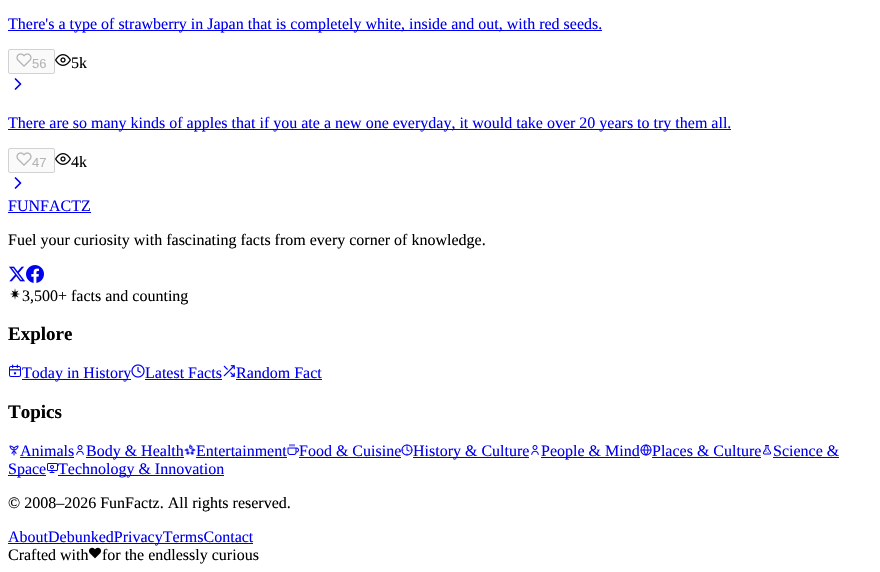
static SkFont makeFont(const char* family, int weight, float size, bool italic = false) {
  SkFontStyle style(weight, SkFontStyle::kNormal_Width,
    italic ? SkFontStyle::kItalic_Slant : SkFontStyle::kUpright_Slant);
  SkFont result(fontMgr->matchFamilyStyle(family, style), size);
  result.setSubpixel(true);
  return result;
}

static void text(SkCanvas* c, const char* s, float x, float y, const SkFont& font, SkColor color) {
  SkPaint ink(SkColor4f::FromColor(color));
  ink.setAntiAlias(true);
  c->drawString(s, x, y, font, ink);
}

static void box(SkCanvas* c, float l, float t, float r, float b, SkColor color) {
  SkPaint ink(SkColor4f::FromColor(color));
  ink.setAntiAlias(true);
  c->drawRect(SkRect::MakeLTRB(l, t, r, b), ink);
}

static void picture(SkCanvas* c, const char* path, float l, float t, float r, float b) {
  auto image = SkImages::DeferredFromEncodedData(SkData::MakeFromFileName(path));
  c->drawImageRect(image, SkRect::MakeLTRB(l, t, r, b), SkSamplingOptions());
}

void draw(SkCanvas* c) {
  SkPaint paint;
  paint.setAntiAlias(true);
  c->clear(0xffffffff);
  box(c, 8, 30, 602, 31, 0xff0000ee);
  SkFont face1 = makeFont("Liberation Serif", 400, 16);
  text(c, "There's a type of strawberry in Japan that is completely white, inside and out, with red seeds.", 8, 29, face1, 0xff0000ee);
  paint.setColor(0xfffafafa);
  c->drawRoundRect(SkRect::MakeLTRB(8.5f, 49.5f, 54.5f, 73.5f), 1.5f, 1.5f, paint);
  paint.setStyle(SkPaint::kStroke_Style);
  paint.setStrokeWidth(1);
  paint.setColor(0xffd2d2d2);
  c->drawRoundRect(SkRect::MakeLTRB(8.5f, 49.5f, 54.5f, 73.5f), 1.5f, 1.5f, paint);
  picture(c, "img_01.png", 16, 53, 32, 67);
  SkFont face2 = makeFont("Liberation Sans", 400, 13);
  text(c, "56", 32, 68, face2, 0xffb4b4b4);
  picture(c, "img_02.png", 55, 54, 71, 66);
  text(c, "5k", 71, 68, face1, 0xff000000);
  paint.setStrokeWidth(1.7f);
  paint.setStrokeCap(SkPaint::kRound_Cap);
  paint.setStrokeJoin(SkPaint::kRound_Join);
  paint.setColor(0xff0000ee);
  c->drawPath(SkPathBuilder().moveTo(15.5f, 89).lineTo(20.5f, 84).lineTo(15.5f, 79).detach(), paint);
  box(c, 8, 129, 731, 130, 0xff0000ee);
  text(c, "There are so many kinds of apples that if you ate a new one everyday, it would take over 20 years to try them all.", 8, 128, face1, 0xff0000ee);
  paint.setStyle(SkPaint::kFill_Style);
  paint.setColor(0xfffafafa);
  c->drawRoundRect(SkRect::MakeLTRB(8.5f, 148.5f, 54.5f, 172.5f), 1.5f, 1.5f, paint);
  paint.setStyle(SkPaint::kStroke_Style);
  paint.setStrokeWidth(1);
  paint.setStrokeCap(SkPaint::kButt_Cap);
  paint.setStrokeJoin(SkPaint::kMiter_Join);
  paint.setColor(0xffd2d2d2);
  c->drawRoundRect(SkRect::MakeLTRB(8.5f, 148.5f, 54.5f, 172.5f), 1.5f, 1.5f, paint);
  picture(c, "img_01.png", 16, 152, 32, 166);
  text(c, "47", 32, 167, face2, 0xffb4b4b4);
  picture(c, "img_02.png", 55, 153, 71, 165);
  text(c, "4k", 71, 167, face1, 0xff000000);
  paint.setStrokeWidth(1.7f);
  paint.setStrokeCap(SkPaint::kRound_Cap);
  paint.setStrokeJoin(SkPaint::kRound_Join);
  paint.setColor(0xff0000ee);
  c->drawPath(SkPathBuilder().moveTo(15.5f, 188).lineTo(20.5f, 183).lineTo(15.5f, 178).detach(), paint);
  text(c, "FUNFACTZ", 8, 211, face1, 0xff0000ee);
  box(c, 8, 212, 91, 213, 0xff0000ee);
  text(c, "Fuel your curiosity with fascinating facts from every corner of knowledge.", 8, 245, face1, 0xff000000);
  picture(c, "img_03.png", 9, 266, 25, 282);
  picture(c, "img_04.png", 26, 265, 44, 283);
  picture(c, "img_05.png", 10, 288, 20, 300);
  text(c, "3,500+ facts and counting", 22, 301, face1, 0xff000000);
  SkFont face3 = makeFont("Liberation Serif", 700, 19);
  text(c, "Explore", 8, 340, face3, 0xff000000);
  picture(c, "img_06.png", 9, 364, 21, 377);
  box(c, 22, 379, 131, 380, 0xff0000ee);
  text(c, "Today in History", 22, 378, face1, 0xff0000ee);
  picture(c, "img_07.png", 131, 364, 145, 378);
  text(c, "Latest Facts", 145, 378, face1, 0xff0000ee);
  box(c, 145, 379, 222, 380, 0xff0000ee);
  picture(c, "img_08.png", 223, 365, 235, 377);
  text(c, "Random Fact", 236, 378, face1, 0xff0000ee);
  box(c, 236, 379, 322, 380, 0xff0000ee);
  text(c, "Topics", 8, 418, face3, 0xff000000);
  picture(c, "img_09.png", 9, 445, 19, 456);
  text(c, "Animals", 20, 456, face1, 0xff0000ee);
  box(c, 20, 457, 74, 458, 0xff0000ee);
  picture(c, "img_10.png", 76, 445, 84, 455);
  box(c, 86, 457, 184, 458, 0xff0000ee);
  text(c, "Body & Health", 86, 456, face1, 0xff0000ee);
  picture(c, "img_11.png", 184, 444, 196, 455);
  text(c, "Entertainment", 196, 456, face1, 0xff0000ee);
  box(c, 196, 457, 287, 458, 0xff0000ee);
  picture(c, "img_12.png", 287, 444, 299, 455);
  text(c, "Food & Cuisine", 299, 456, face1, 0xff0000ee);
  box(c, 299, 457, 401, 458, 0xff0000ee);
  picture(c, "img_13.png", 401, 444, 413, 456);
  box(c, 413, 457, 529, 458, 0xff0000ee);
  text(c, "History & Culture", 413, 456, face1, 0xff0000ee);
  picture(c, "img_10.png", 531, 445, 539, 455);
  box(c, 541, 457, 640, 458, 0xff0000ee);
  text(c, "People & Mind", 541, 456, face1, 0xff0000ee);
  picture(c, "img_14.png", 640, 444, 652, 456);
  text(c, "Places & Culture", 652, 456, face1, 0xff0000ee);
  box(c, 652, 457, 761, 458, 0xff0000ee);
  picture(c, "img_15.png", 762, 445, 772, 455);
  text(c, "Science &", 773, 456, face1, 0xff0000ee);
  box(c, 773, 457, 839, 458, 0xff0000ee);
  box(c, 8, 475, 46, 476, 0xff0000ee);
  text(c, "Space", 8, 474, face1, 0xff0000ee);
  picture(c, "img_16.png", 47, 463, 58, 473);
  box(c, 58, 475, 224, 476, 0xff0000ee);
  text(c, "Technology & Innovation", 58, 474, face1, 0xff0000ee);
  text(c, "© 2008–2026 FunFactz. All rights reserved.", 8, 508, face1, 0xff000000);
  box(c, 8, 543, 253, 544, 0xff0000ee);
  text(c, "AboutDebunkedPrivacyTermsContact", 8, 542, face1, 0xff0000ee);
  text(c, "Crafted with", 8, 560, face1, 0xff000000);
  picture(c, "img_17.png", 88, 547, 102, 559);
  text(c, "for the endlessly curious", 102, 560, face1, 0xff000000);
}
